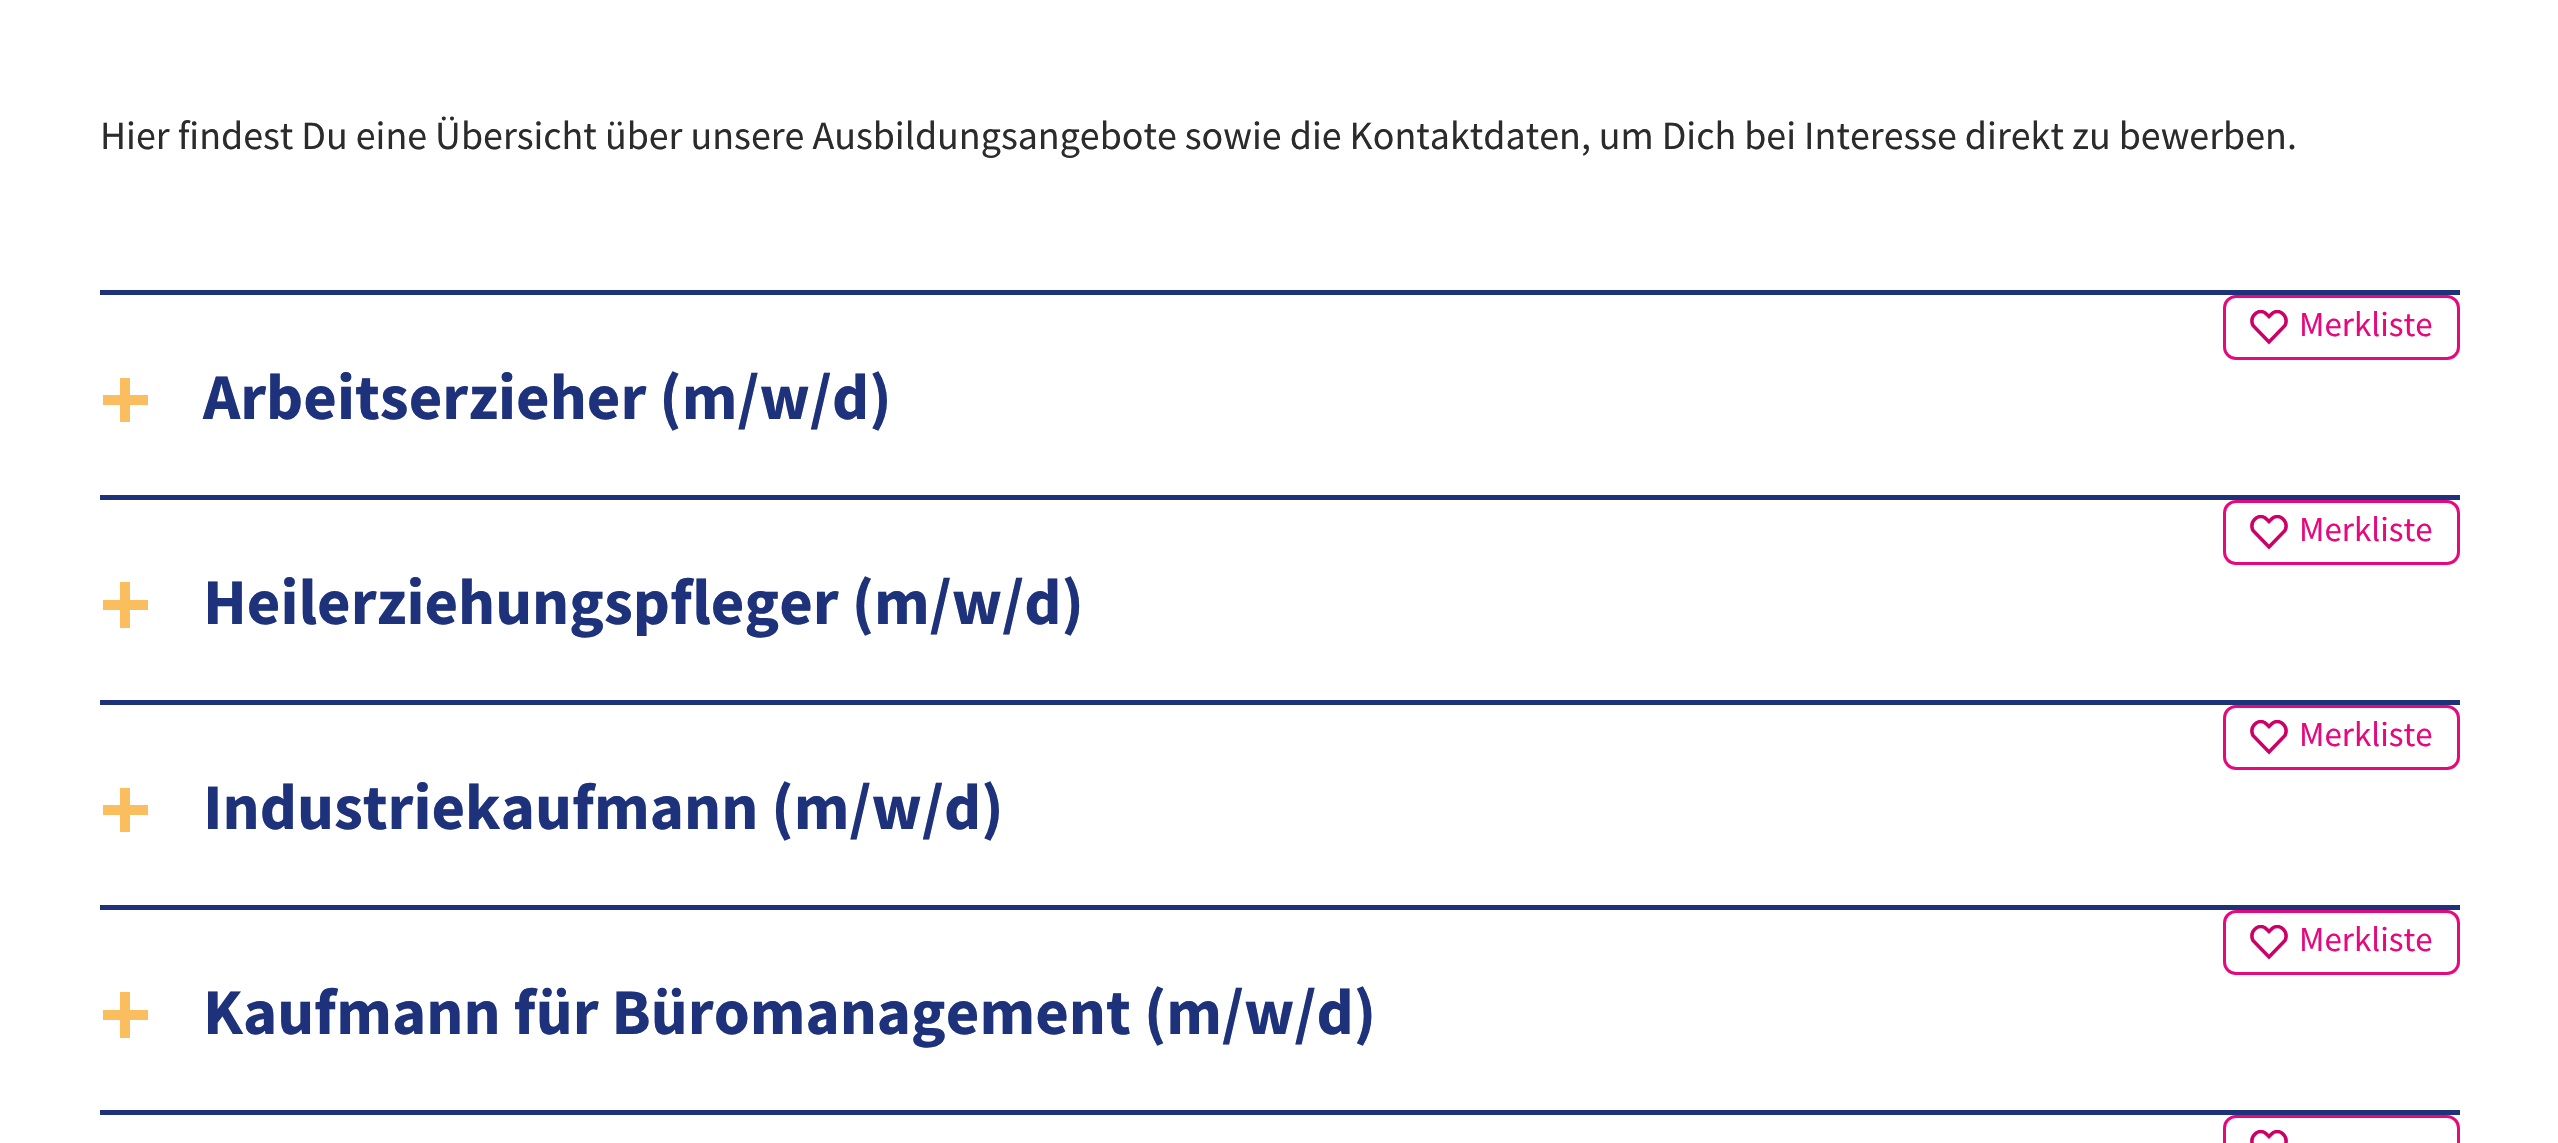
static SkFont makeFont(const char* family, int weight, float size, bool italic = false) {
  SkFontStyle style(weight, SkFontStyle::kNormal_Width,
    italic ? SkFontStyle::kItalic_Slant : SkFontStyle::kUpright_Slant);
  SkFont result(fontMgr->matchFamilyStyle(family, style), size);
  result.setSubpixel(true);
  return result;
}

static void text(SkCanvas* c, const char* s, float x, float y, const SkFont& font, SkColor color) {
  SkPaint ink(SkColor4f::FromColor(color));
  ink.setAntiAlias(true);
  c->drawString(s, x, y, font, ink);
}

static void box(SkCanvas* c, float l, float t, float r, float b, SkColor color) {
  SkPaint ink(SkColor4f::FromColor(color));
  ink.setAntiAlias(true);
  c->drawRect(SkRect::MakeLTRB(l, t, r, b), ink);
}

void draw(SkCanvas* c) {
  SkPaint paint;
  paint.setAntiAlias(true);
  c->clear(0xffffffff);
  SkFont face1 = makeFont("Source Sans Pro", 400, 40);
  text(c, "Hier findest Du eine Übersicht über unsere Ausbildungsangebote sowie die Kontaktdaten, um Dich bei Interesse direkt zu bewerben.", 100, 149, face1, 0xff2b2b2b);
  box(c, 100, 290, 2460, 295, 0xff1d327b);
  paint.setStyle(SkPaint::kStroke_Style);
  paint.setStrokeWidth(3);
  paint.setColor(0xffe6097e);
  c->drawRoundRect(SkRect::MakeLTRB(2224.5f, 296.5f, 2458.5f, 358.5f), 11.5f, 11.5f, paint);
  c->save();
  c->clipRect(SkRect::MakeLTRB(2250, 310, 2288, 345));
  paint.setStrokeWidth(3.5f);
  paint.setColor(0xffcc0066);
  c->drawPath(SkPathBuilder().moveTo(2283.5f, 314.5f).cubicTo(2280, 310.5f, 2274.5f, 310.5f, 2271, 314.5f).lineTo(2269, 316.5f).lineTo(2267, 314.5f).cubicTo(2263.5f, 310.5f, 2258, 310.5f, 2254.5f, 314.5f).cubicTo(2251, 318, 2251, 324, 2254.5f, 327).lineTo(2269, 342).lineTo(2283.5f, 327).cubicTo(2287, 324, 2287, 318, 2283.5f, 314.5f).close().detach(), paint);
  c->restore();
  SkFont face2 = makeFont("Source Sans Pro", 400, 35);
  text(c, "Merkliste", 2299, 336, face2, 0xffe6097e);
  box(c, 120, 378, 130, 422, 0xfffbbe5e);
  SkFont face3 = makeFont("Source Sans Pro", 700, 65);
  text(c, "Arbeitserzieher (m/w/d)", 203, 419, face3, 0xff1d327b);
  box(c, 103, 395, 148, 405, 0xfffbbe5e);
  box(c, 100, 495, 2460, 500, 0xff1d327b);
  paint.setStrokeWidth(3);
  paint.setColor(0xffe6097e);
  c->drawRoundRect(SkRect::MakeLTRB(2224.5f, 501.5f, 2458.5f, 563.5f), 11.5f, 11.5f, paint);
  c->save();
  c->clipRect(SkRect::MakeLTRB(2250, 515, 2288, 550));
  paint.setStrokeWidth(3.5f);
  paint.setColor(0xffcc0066);
  c->drawPath(SkPathBuilder().moveTo(2283.5f, 519.5f).cubicTo(2280, 515.5f, 2274.5f, 515.5f, 2271, 519.5f).lineTo(2269, 521.5f).lineTo(2267, 519.5f).cubicTo(2263.5f, 515.5f, 2258, 515.5f, 2254.5f, 519.5f).cubicTo(2251, 523, 2251, 529, 2254.5f, 532).lineTo(2269, 547).lineTo(2283.5f, 532).cubicTo(2287, 529, 2287, 523, 2283.5f, 519.5f).close().detach(), paint);
  c->restore();
  text(c, "Merkliste", 2299, 541, face2, 0xffe6097e);
  box(c, 120, 582, 130, 628, 0xfffbbe5e);
  text(c, "Heilerziehungspfleger (m/w/d)", 203, 624, face3, 0xff1d327b);
  box(c, 103, 600, 148, 610, 0xfffbbe5e);
  box(c, 100, 700, 2460, 705, 0xff1d327b);
  paint.setStrokeWidth(3);
  paint.setColor(0xffe6097e);
  c->drawRoundRect(SkRect::MakeLTRB(2224.5f, 706.5f, 2458.5f, 768.5f), 11.5f, 11.5f, paint);
  c->save();
  c->clipRect(SkRect::MakeLTRB(2250, 720, 2288, 755));
  paint.setStrokeWidth(3.5f);
  paint.setColor(0xffcc0066);
  c->drawPath(SkPathBuilder().moveTo(2283.5f, 724.5f).cubicTo(2280, 720.5f, 2274.5f, 720.5f, 2271, 724.5f).lineTo(2269, 726.5f).lineTo(2267, 724.5f).cubicTo(2263.5f, 720.5f, 2258, 720.5f, 2254.5f, 724.5f).cubicTo(2251, 728, 2251, 734, 2254.5f, 737).lineTo(2269, 752).lineTo(2283.5f, 737).cubicTo(2287, 734, 2287, 728, 2283.5f, 724.5f).close().detach(), paint);
  c->restore();
  text(c, "Merkliste", 2299, 746, face2, 0xffe6097e);
  box(c, 120, 788, 130, 832, 0xfffbbe5e);
  text(c, "Industriekaufmann (m/w/d)", 203, 829, face3, 0xff1d327b);
  box(c, 103, 805, 148, 815, 0xfffbbe5e);
  box(c, 100, 905, 2460, 910, 0xff1d327b);
  paint.setStrokeWidth(3);
  paint.setColor(0xffe6097e);
  c->drawRoundRect(SkRect::MakeLTRB(2224.5f, 911.5f, 2458.5f, 973.5f), 11.5f, 11.5f, paint);
  c->save();
  c->clipRect(SkRect::MakeLTRB(2250, 925, 2288, 960));
  paint.setStrokeWidth(3.5f);
  paint.setColor(0xffcc0066);
  c->drawPath(SkPathBuilder().moveTo(2283.5f, 929.5f).cubicTo(2280, 925.5f, 2274.5f, 925.5f, 2271, 929.5f).lineTo(2269, 931.5f).lineTo(2267, 929.5f).cubicTo(2263.5f, 925.5f, 2258, 925.5f, 2254.5f, 929.5f).cubicTo(2251, 933, 2251, 939, 2254.5f, 942).lineTo(2269, 957).lineTo(2283.5f, 942).cubicTo(2287, 939, 2287, 933, 2283.5f, 929.5f).close().detach(), paint);
  c->restore();
  text(c, "Merkliste", 2299, 951, face2, 0xffe6097e);
  box(c, 120, 992, 130, 1038, 0xfffbbe5e);
  text(c, "Kaufmann für Büromanagement (m/w/d)", 203, 1034, face3, 0xff1d327b);
  box(c, 103, 1010, 148, 1020, 0xfffbbe5e);
  box(c, 100, 1110, 2460, 1115, 0xff1d327b);
  paint.setStrokeWidth(3);
  paint.setColor(0xffe6097e);
  c->drawRoundRect(SkRect::MakeLTRB(2224.5f, 1116.5f, 2458.5f, 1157.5f), 11.5f, 11.5f, paint);
  c->save();
  c->clipRect(SkRect::MakeLTRB(2250, 1130, 2288, 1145));
  paint.setStrokeWidth(3.5f);
  paint.setColor(0xffcc0066);
  c->drawPath(SkPathBuilder().moveTo(2283.5f, 1134.5f).cubicTo(2280, 1130.5f, 2274.5f, 1130.5f, 2271, 1134.5f).lineTo(2269, 1136.5f).lineTo(2267, 1134.5f).cubicTo(2263.5f, 1130.5f, 2258, 1130.5f, 2254.5f, 1134.5f).cubicTo(2251, 1138, 2251, 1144, 2254.5f, 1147).lineTo(2269, 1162).lineTo(2283.5f, 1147).cubicTo(2287, 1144, 2287, 1138, 2283.5f, 1134.5f).close().detach(), paint);
  c->restore();
}
